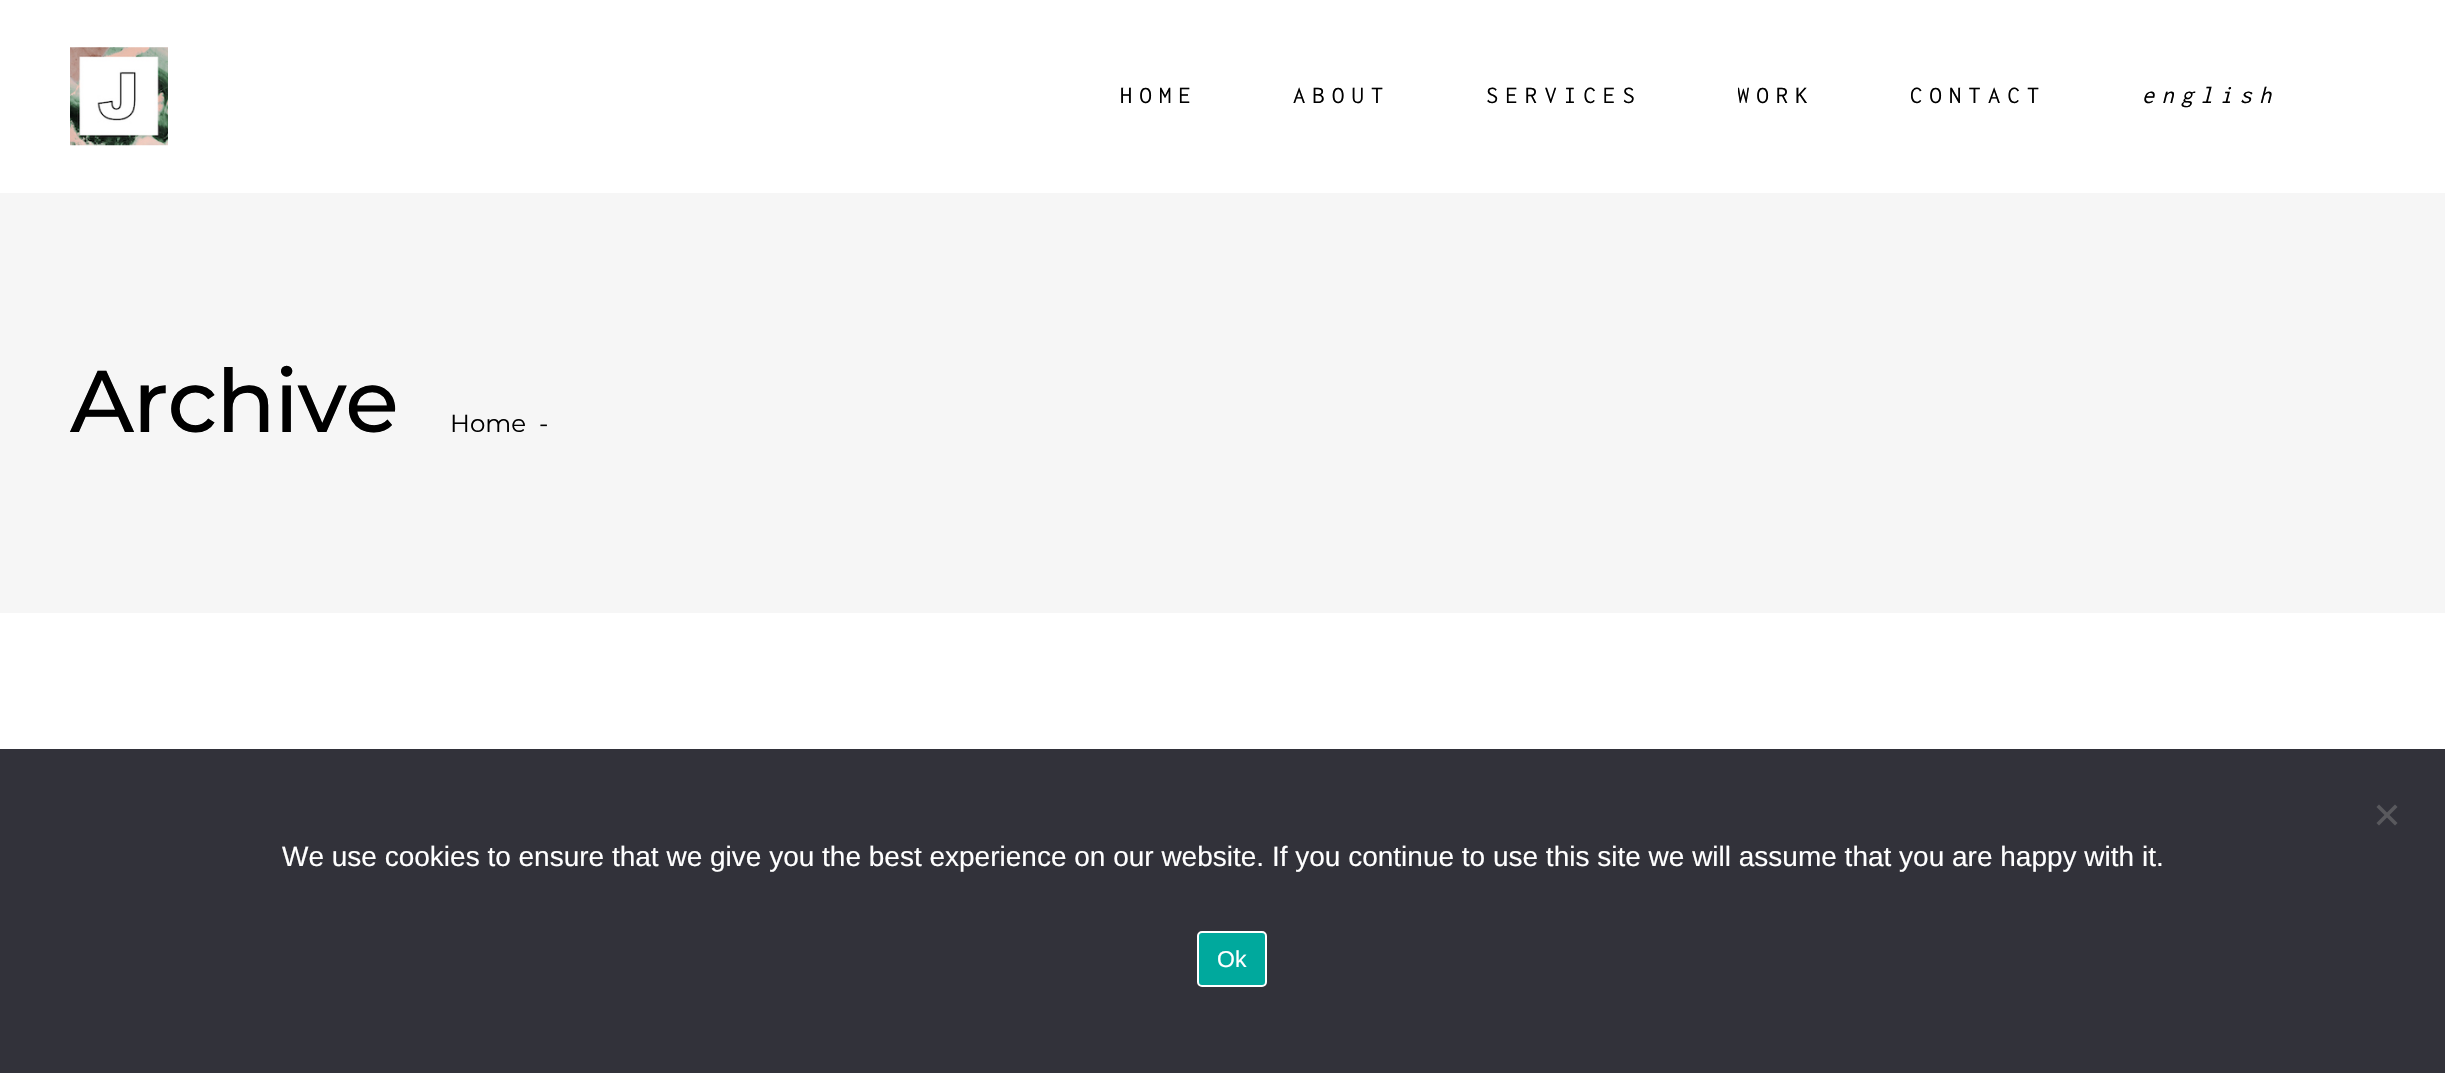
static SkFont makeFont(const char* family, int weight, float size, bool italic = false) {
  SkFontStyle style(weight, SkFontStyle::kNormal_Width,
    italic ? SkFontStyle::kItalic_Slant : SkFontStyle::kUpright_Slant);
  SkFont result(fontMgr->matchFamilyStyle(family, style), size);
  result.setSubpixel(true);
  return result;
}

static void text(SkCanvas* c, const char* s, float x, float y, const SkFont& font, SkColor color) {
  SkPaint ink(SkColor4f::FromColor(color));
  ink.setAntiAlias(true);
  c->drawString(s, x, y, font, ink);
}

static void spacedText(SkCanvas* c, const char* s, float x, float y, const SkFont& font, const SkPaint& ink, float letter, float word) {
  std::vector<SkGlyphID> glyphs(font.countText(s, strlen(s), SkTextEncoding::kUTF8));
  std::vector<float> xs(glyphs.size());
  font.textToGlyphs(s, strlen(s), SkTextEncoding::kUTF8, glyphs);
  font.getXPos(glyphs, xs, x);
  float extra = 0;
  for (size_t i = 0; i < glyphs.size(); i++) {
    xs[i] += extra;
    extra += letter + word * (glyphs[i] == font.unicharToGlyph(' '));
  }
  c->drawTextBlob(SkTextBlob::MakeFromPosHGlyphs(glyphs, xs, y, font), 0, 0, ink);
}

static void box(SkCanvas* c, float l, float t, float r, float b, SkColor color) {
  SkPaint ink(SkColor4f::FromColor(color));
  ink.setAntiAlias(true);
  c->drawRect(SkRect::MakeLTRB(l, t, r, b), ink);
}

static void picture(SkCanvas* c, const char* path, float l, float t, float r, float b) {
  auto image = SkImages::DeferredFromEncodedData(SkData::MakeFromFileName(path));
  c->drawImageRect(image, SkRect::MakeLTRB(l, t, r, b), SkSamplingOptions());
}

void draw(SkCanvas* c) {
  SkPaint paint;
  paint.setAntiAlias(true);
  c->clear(0xffffffff);
  picture(c, "img_01.png", 70, 47, 168, 146);
  SkFont face1 = makeFont("Inconsolata", 400, 24.5f);
  paint.setColor(0xff000000);
  spacedText(c, "HOME", 1120, 103, face1, paint, 7.25f, 0);
  spacedText(c, "ABOUT", 1293, 103, face1, paint, 7.25f, 0);
  spacedText(c, "SERVICES", 1486, 103, face1, paint, 7.25f, 0);
  c->save();
  c->clipRect(SkRect::MakeLTRB(1738, 75, 1852, 117));
  spacedText(c, "WORK", 1737, 103, face1, paint, 7.25f, 0);
  c->restore();
  spacedText(c, "CONTACT", 1910, 103, face1, paint, 7.25f, 0);
  SkFont face2 = makeFont("Inconsolata", 400, 24.5f, true);
  spacedText(c, "english", 2142, 103, face2, paint, 7.25f, 0);
  box(c, 0, 193, 2445, 613, 0xfff6f6f6);
  SkFont face3 = makeFont("Montserrat", 500, 87.5f);
  spacedText(c, "Archive", 70, 432, face3, paint, -1.25f, 0);
  SkFont face4 = makeFont("Montserrat", 400, 24.5f);
  text(c, "Home", 450, 432, face4, 0xff000000);
  text(c, "-", 539, 432, face4, 0xff000000);
  box(c, 0, 749, 2445, 1073, 0xff32323a);
  paint.setColor(0xff59595d);
  c->drawPath(SkPathBuilder().moveTo(2395, 804.5f).lineTo(2397.5f, 807).lineTo(2379, 825.5f).lineTo(2376.5f, 823).close().detach(), paint);
  c->drawPath(SkPathBuilder().moveTo(2376.5f, 807).lineTo(2379, 804.5f).lineTo(2397.5f, 823).lineTo(2395, 825.5f).close().detach(), paint);
  SkFont face5 = makeFont("Liberation Sans", 400, 28);
  text(c, "We use cookies to ensure that we give you the best experience on our website. If you continue to use this site we will assume that you are happy with it.", 282, 866, face5, 0xffffffff);
  paint.setColor(0xff00a99d);
  c->drawRoundRect(SkRect::MakeLTRB(1198, 932, 1266, 986), 4, 4, paint);
  paint.setStyle(SkPaint::kStroke_Style);
  paint.setStrokeWidth(2);
  paint.setColor(0xffffffff);
  c->drawRoundRect(SkRect::MakeLTRB(1198, 932, 1266, 986), 4, 4, paint);
  SkFont face6 = makeFont("Liberation Sans", 400, 23);
  text(c, "Ok", 1217, 967, face6, 0xffffffff);
}
